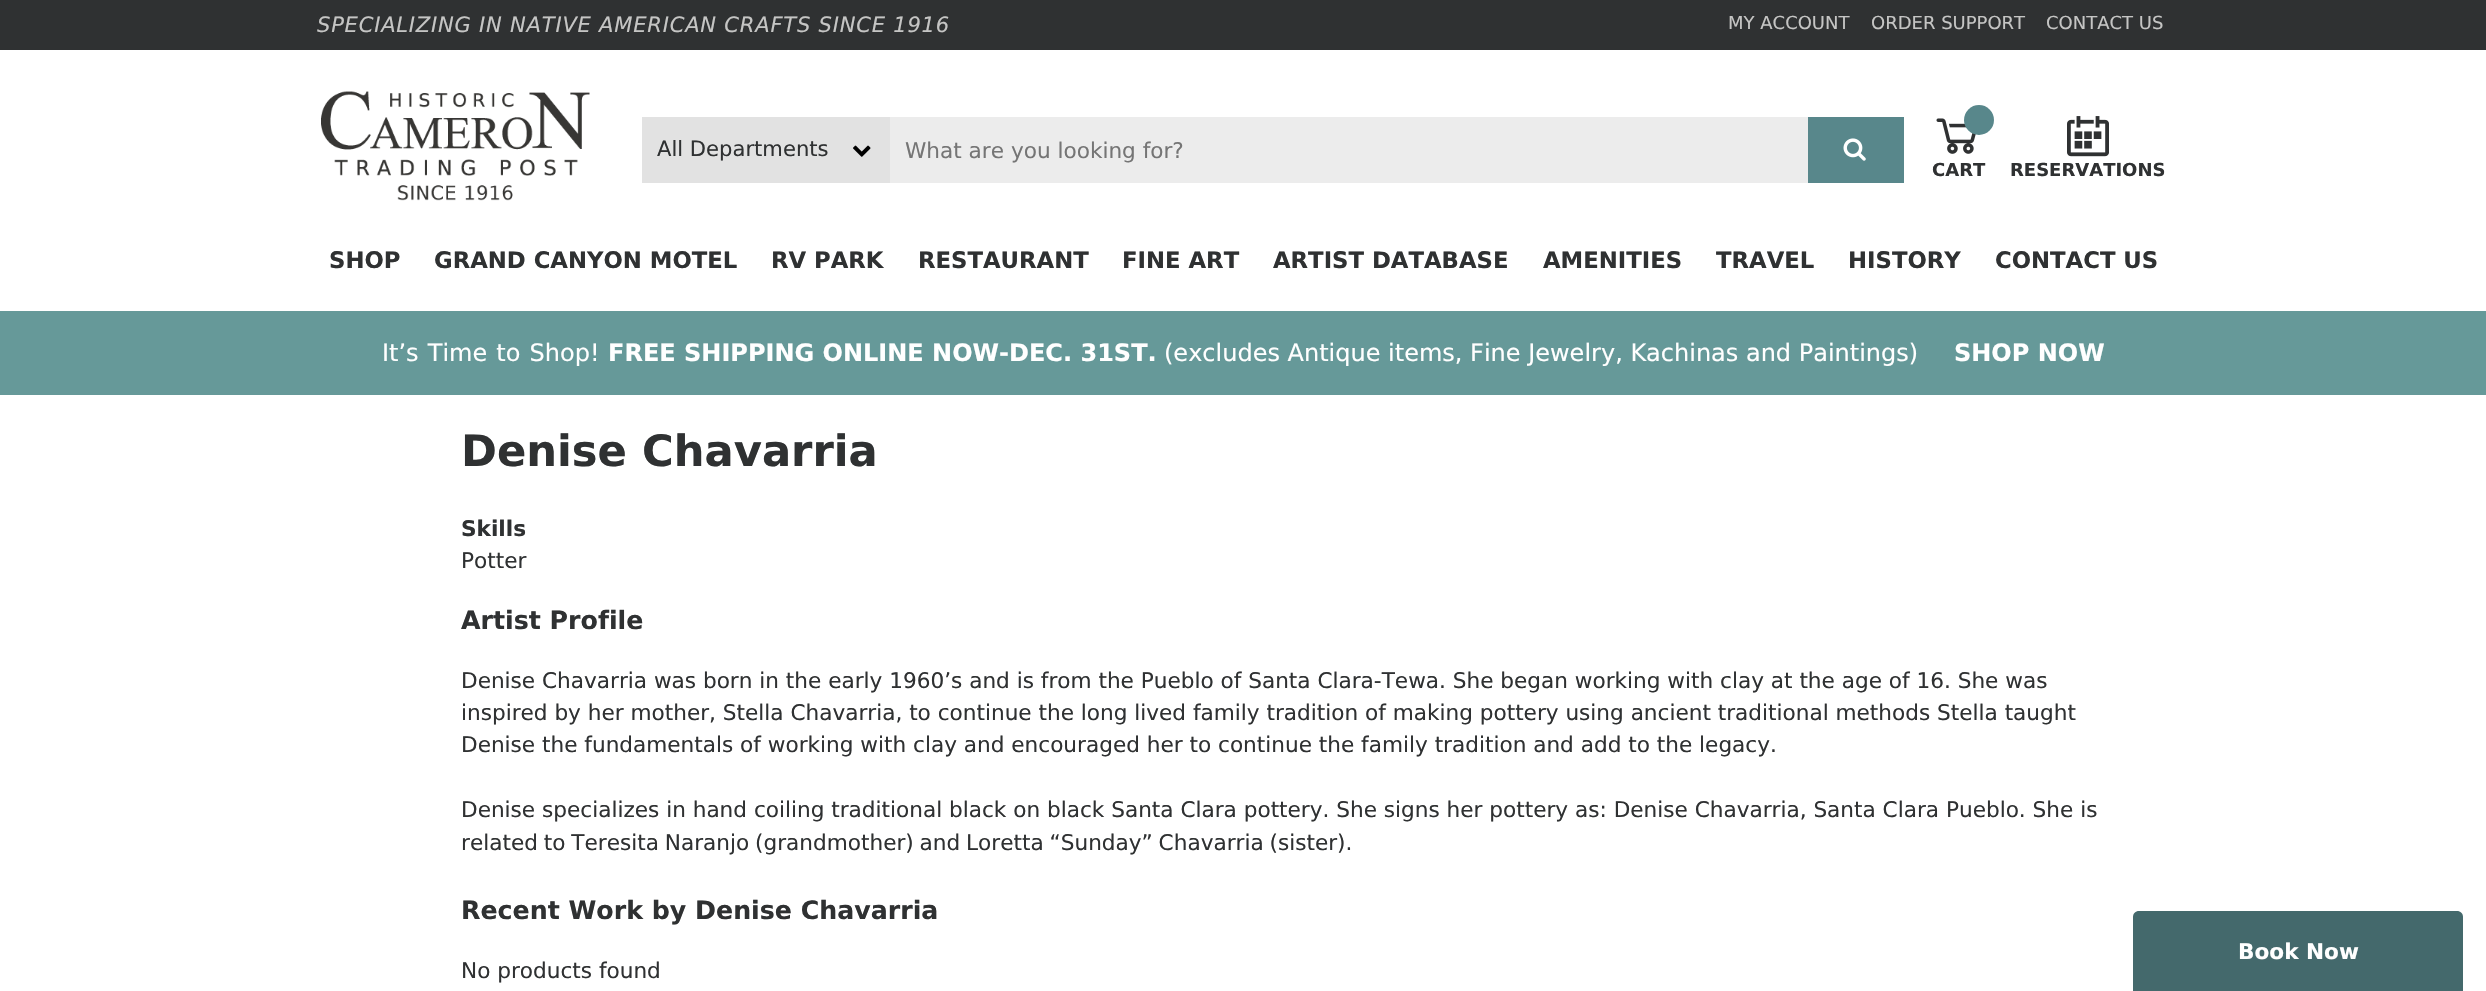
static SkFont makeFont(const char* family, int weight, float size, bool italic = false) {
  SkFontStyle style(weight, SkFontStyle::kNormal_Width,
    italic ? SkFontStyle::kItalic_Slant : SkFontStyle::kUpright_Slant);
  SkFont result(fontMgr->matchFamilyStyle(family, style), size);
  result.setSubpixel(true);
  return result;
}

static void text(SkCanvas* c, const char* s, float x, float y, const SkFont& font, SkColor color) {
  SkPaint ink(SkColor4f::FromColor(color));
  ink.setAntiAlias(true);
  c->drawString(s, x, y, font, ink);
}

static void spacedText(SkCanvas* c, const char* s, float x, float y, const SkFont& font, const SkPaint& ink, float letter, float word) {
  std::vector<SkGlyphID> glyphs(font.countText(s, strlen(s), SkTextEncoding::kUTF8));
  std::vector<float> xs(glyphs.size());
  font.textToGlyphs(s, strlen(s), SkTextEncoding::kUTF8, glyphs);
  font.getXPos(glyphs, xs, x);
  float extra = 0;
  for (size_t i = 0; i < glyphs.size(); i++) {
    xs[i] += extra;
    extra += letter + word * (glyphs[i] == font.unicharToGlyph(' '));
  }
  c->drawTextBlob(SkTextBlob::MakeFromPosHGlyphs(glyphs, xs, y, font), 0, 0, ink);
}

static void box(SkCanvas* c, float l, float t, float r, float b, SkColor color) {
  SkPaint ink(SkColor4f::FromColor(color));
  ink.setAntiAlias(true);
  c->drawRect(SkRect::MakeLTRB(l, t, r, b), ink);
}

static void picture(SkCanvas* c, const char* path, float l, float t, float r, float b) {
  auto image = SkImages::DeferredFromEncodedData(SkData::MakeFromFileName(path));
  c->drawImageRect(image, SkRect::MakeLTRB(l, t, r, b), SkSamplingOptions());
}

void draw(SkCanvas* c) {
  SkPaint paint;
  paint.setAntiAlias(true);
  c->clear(0xffffffff);
  box(c, 0, 0, 2486, 50, 0xff2f3132);
  SkFont face1 = makeFont("DejaVu Sans", 400, 21.1f, true);
  paint.setColor(0xffc5c5c4);
  spacedText(c, "SPECIALIZING IN NATIVE AMERICAN CRAFTS SINCE 1916", 317, 32, face1, paint, 0.75f, 0);
  SkFont face2 = makeFont("DejaVu Sans", 400, 18);
  text(c, "MY ACCOUNT", 1728, 29, face2, 0xffc5c5c4);
  text(c, "ORDER SUPPORT", 1871, 29, face2, 0xffc5c5c4);
  text(c, "CONTACT US", 2046, 29, face2, 0xffc5c5c4);
  picture(c, "img_01.png", 321, 91, 590, 201);
  box(c, 642, 117, 890, 183, 0xffe2e2e2);
  SkFont face3 = makeFont("DejaVu Sans", 400, 21.1f);
  text(c, "All Departments", 657, 156, face3, 0xff2f3132);
  picture(c, "img_02.png", 853, 145, 871, 157);
  box(c, 890, 117, 1808, 183, 0xffececec);
  SkFont face4 = makeFont("DejaVu Sans", 400, 21.6f);
  text(c, "What are you looking for?", 905, 158, face4, 0xff757575);
  box(c, 1808, 117, 1904, 183, 0xff58878b);
  picture(c, "img_03.png", 1843, 138, 1866, 161);
  picture(c, "img_04.png", 1936, 118, 1976, 154);
  paint.setColor(0xff58878b);
  c->drawCircle(1979, 120, 15, paint);
  SkFont face5 = makeFont("DejaVu Sans", 700, 18);
  text(c, "CART", 1932, 176, face5, 0xff2f3132);
  picture(c, "img_05.png", 2067, 116, 2109, 157);
  text(c, "RESERVATIONS", 2010, 176, face5, 0xff2f3132);
  SkFont face6 = makeFont("DejaVu Sans", 700, 22.75f);
  text(c, "SHOP", 329, 268, face6, 0xff2f3132);
  text(c, "GRAND CANYON MOTEL", 434, 268, face6, 0xff2f3132);
  text(c, "RV PARK", 771, 268, face6, 0xff2f3132);
  text(c, "RESTAURANT", 918, 268, face6, 0xff2f3132);
  text(c, "FINE ART", 1122, 268, face6, 0xff2f3132);
  text(c, "ARTIST DATABASE", 1273, 268, face6, 0xff2f3132);
  text(c, "AMENITIES", 1543, 268, face6, 0xff2f3132);
  text(c, "TRAVEL", 1716, 268, face6, 0xff2f3132);
  text(c, "HISTORY", 1848, 268, face6, 0xff2f3132);
  text(c, "CONTACT US", 1995, 268, face6, 0xff2f3132);
  box(c, 0, 311, 2486, 395, 0xff669999);
  SkFont face7 = makeFont("DejaVu Sans", 400, 24);
  paint.setColor(0xffffffff);
  spacedText(c, "It’s Time to Shop!", 382, 361, face7, paint, 0, 1.5f);
  SkFont face8 = makeFont("DejaVu Sans", 700, 24);
  text(c, "FREE SHIPPING ONLINE NOW-DEC. 31ST.", 608, 361, face8, 0xffffffff);
  text(c, "(excludes Antique items, Fine Jewelry, Kachinas and Paintings)", 1164, 361, face7, 0xffffffff);
  text(c, "SHOP NOW", 1954, 361, face8, 0xffffffff);
  SkFont face9 = makeFont("DejaVu Sans", 700, 43.25f);
  text(c, "Denise Chavarria", 461, 466, face9, 0xff2f3132);
  SkFont face10 = makeFont("DejaVu Sans", 700, 21.6f);
  text(c, "Skills", 461, 536, face10, 0xff2f3132);
  text(c, "Potter", 461, 568, face4, 0xff2f3132);
  SkFont face11 = makeFont("DejaVu Sans", 700, 25.25f);
  text(c, "Artist Profile", 461, 629, face11, 0xff2f3132);
  text(c, "Denise Chavarria was born in the early 1960’s and is from the Pueblo of Santa Clara-Tewa. She began working with clay at the age of 16. She was", 461, 688, face4, 0xff2f3132);
  text(c, "inspired by her mother, Stella Chavarria, to continue the long lived family tradition of making pottery using ancient traditional methods Stella taught", 461, 720, face4, 0xff2f3132);
  text(c, "Denise the fundamentals of working with clay and encouraged her to continue the family tradition and add to the legacy.", 461, 752, face4, 0xff2f3132);
  text(c, "Denise specializes in hand coiling traditional black on black Santa Clara pottery. She signs her pottery as: Denise Chavarria, Santa Clara Pueblo. She is", 461, 817, face4, 0xff2f3132);
  paint.setColor(0xff2f3132);
  spacedText(c, "related to Teresita Naranjo (grandmother) and Loretta “Sunday” Chavarria (sister).", 461, 850, face4, paint, 0, -1);
  text(c, "Recent Work by Denise Chavarria", 461, 919, face11, 0xff2f3132);
  text(c, "No products found", 461, 978, face4, 0xff2f3132);
  paint.setColor(0xff44696c);
  c->drawPath(SkPathBuilder().moveTo(2139, 911).lineTo(2457, 911).cubicTo(2460.5f, 911, 2463, 913.5f, 2463, 917).lineTo(2463, 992).lineTo(2133, 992).lineTo(2133, 917).cubicTo(2133, 913.5f, 2135.5f, 911, 2139, 911).close().detach(), paint);
  text(c, "Book Now", 2238, 959, face10, 0xffffffff);
}
